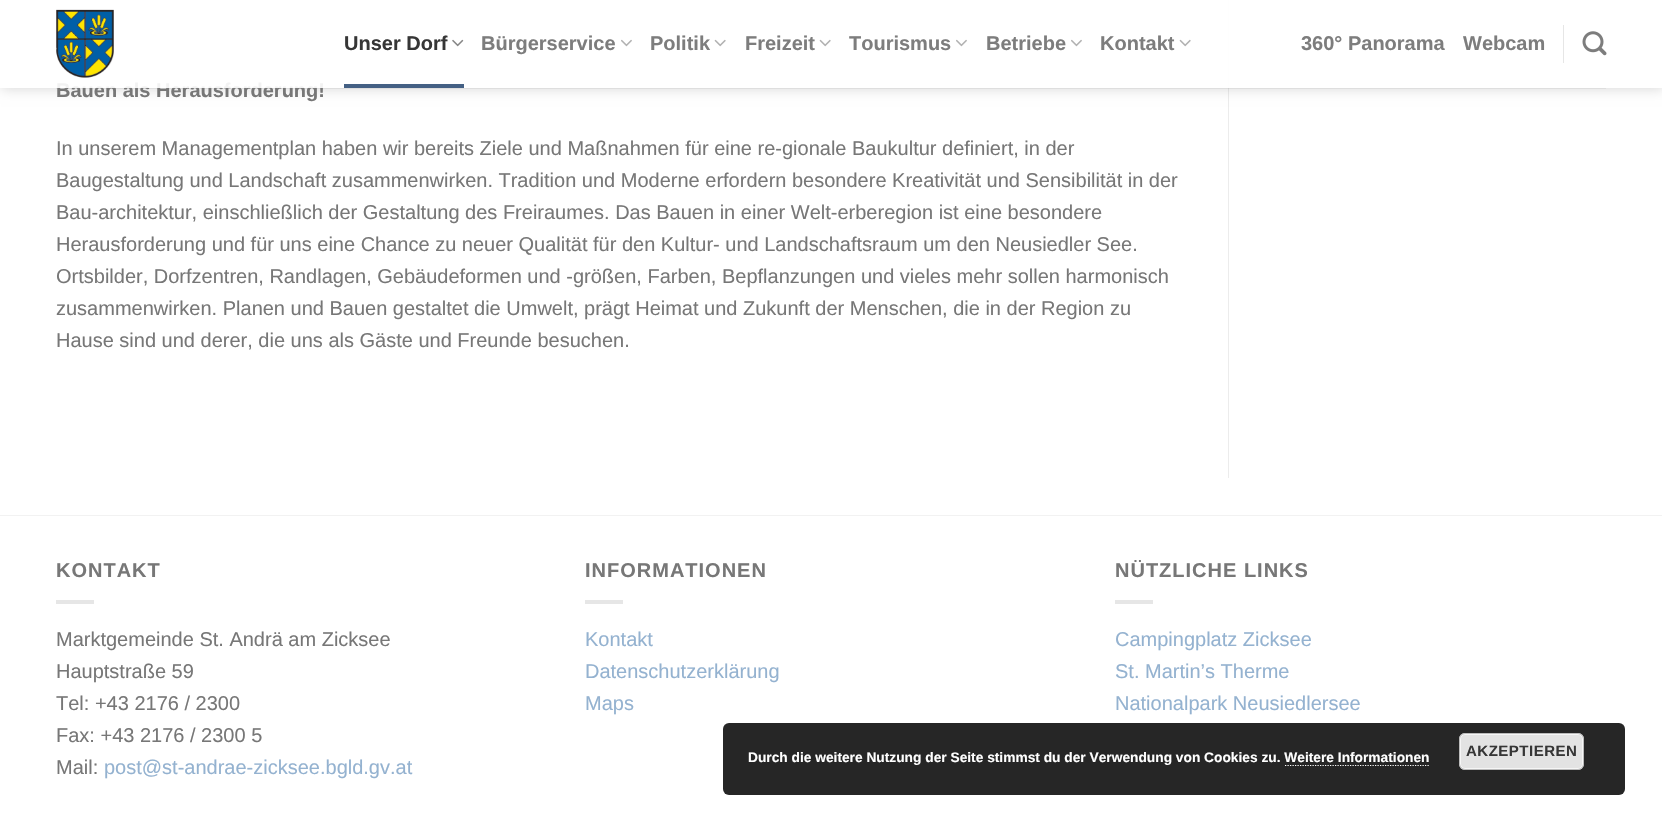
static SkFont makeFont(const char* family, int weight, float size, bool italic = false) {
  SkFontStyle style(weight, SkFontStyle::kNormal_Width,
    italic ? SkFontStyle::kItalic_Slant : SkFontStyle::kUpright_Slant);
  SkFont result(fontMgr->matchFamilyStyle(family, style), size);
  result.setSubpixel(true);
  return result;
}

static void text(SkCanvas* c, const char* s, float x, float y, const SkFont& font, SkColor color) {
  SkPaint ink(SkColor4f::FromColor(color));
  ink.setAntiAlias(true);
  c->drawString(s, x, y, font, ink);
}

static void spacedText(SkCanvas* c, const char* s, float x, float y, const SkFont& font, const SkPaint& ink, float letter, float word) {
  std::vector<SkGlyphID> glyphs(font.countText(s, strlen(s), SkTextEncoding::kUTF8));
  std::vector<float> xs(glyphs.size());
  font.textToGlyphs(s, strlen(s), SkTextEncoding::kUTF8, glyphs);
  font.getXPos(glyphs, xs, x);
  float extra = 0;
  for (size_t i = 0; i < glyphs.size(); i++) {
    xs[i] += extra;
    extra += letter + word * (glyphs[i] == font.unicharToGlyph(' '));
  }
  c->drawTextBlob(SkTextBlob::MakeFromPosHGlyphs(glyphs, xs, y, font), 0, 0, ink);
}

static void box(SkCanvas* c, float l, float t, float r, float b, SkColor color) {
  SkPaint ink(SkColor4f::FromColor(color));
  ink.setAntiAlias(true);
  c->drawRect(SkRect::MakeLTRB(l, t, r, b), ink);
}

static void roundBox(SkCanvas* c, float l, float t, float r, float b, float radius, SkColor color) {
  SkPaint ink(SkColor4f::FromColor(color));
  ink.setAntiAlias(true);
  c->drawRoundRect(SkRect::MakeLTRB(l, t, r, b), radius, radius, ink);
}

static void picture(SkCanvas* c, const char* path, float l, float t, float r, float b) {
  auto image = SkImages::DeferredFromEncodedData(SkData::MakeFromFileName(path));
  c->drawImageRect(image, SkRect::MakeLTRB(l, t, r, b), SkSamplingOptions());
}

void draw(SkCanvas* c) {
  SkPaint paint;
  paint.setAntiAlias(true);
  c->clear(0xffffffff);
  box(c, 1228, 0, 1229, 478, 0xffececec);
  c->save();
  c->clipPath(SkPathBuilder(SkPathFillType::kEvenOdd).moveTo(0, 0).lineTo(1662, 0).lineTo(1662, 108).lineTo(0, 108).close().moveTo(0, 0).lineTo(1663, 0).lineTo(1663, 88).lineTo(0, 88).close().detach(), true);
  paint.setColor(0x26000000);
  paint.setMaskFilter(SkMaskFilter::MakeBlur(kNormal_SkBlurStyle, 6));
  c->drawRect(SkRect::MakeLTRB(1, 1, 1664, 89), paint);
  paint.setMaskFilter(nullptr);
  c->restore();
  SkFont face1 = makeFont("Liberation Sans", 700, 20);
  text(c, "Bauen als Herausforderung!", 56, 97, face1, 0xff777777);
  box(c, 0, 0, 1662, 88, 0xe6ffffff);
  picture(c, "img_01.png", 56, 9, 114, 78);
  text(c, "Unser Dorf", 344, 50, face1, 0xff363636);
  picture(c, "img_02.png", 452, 39, 464, 47);
  box(c, 344, 84, 464, 88, 0xff446084);
  text(c, "Bürgerservice", 481, 50, face1, 0xff7d7d7d);
  picture(c, "img_03.png", 621, 39, 632, 47);
  text(c, "Politik", 650, 50, face1, 0xff7d7d7d);
  picture(c, "img_04.png", 714, 39, 726, 47);
  text(c, "Freizeit", 745, 50, face1, 0xff7d7d7d);
  picture(c, "img_04.png", 819, 39, 831, 47);
  text(c, "Tourismus", 849, 50, face1, 0xff7d7d7d);
  picture(c, "img_03.png", 956, 39, 967, 47);
  text(c, "Betriebe", 986, 50, face1, 0xff7d7d7d);
  picture(c, "img_03.png", 1071, 39, 1082, 47);
  text(c, "Kontakt", 1100, 50, face1, 0xff7d7d7d);
  picture(c, "img_04.png", 1179, 39, 1191, 47);
  text(c, "360° Panorama", 1301, 50, face1, 0xff7d7d7d);
  text(c, "Webcam", 1463, 50, face1, 0xff7d7d7d);
  box(c, 1563, 25, 1564, 63, 0xffe6e6e6);
  picture(c, "img_05.png", 1582, 31, 1607, 56);
  box(c, 56, 88, 1606, 89, 0x1a777777);
  SkFont face2 = makeFont("Liberation Sans", 400, 20);
  text(c, "In unserem Managementplan haben wir bereits Ziele und Maßnahmen für eine re-gionale Baukultur definiert, in der", 56, 155, face2, 0xff777777);
  text(c, "Baugestaltung und Landschaft zusammenwirken. Tradition und Moderne erfordern besondere Kreativität und Sensibilität in der", 56, 187, face2, 0xff777777);
  text(c, "Bau-architektur, einschließlich der Gestaltung des Freiraumes. Das Bauen in einer Welt-erberegion ist eine besondere", 56, 219, face2, 0xff777777);
  text(c, "Herausforderung und für uns eine Chance zu neuer Qualität für den Kultur- und Landschaftsraum um den Neusiedler See.", 56, 251, face2, 0xff777777);
  text(c, "Ortsbilder, Dorfzentren, Randlagen, Gebäudeformen und -größen, Farben, Bepflanzungen und vieles mehr sollen harmonisch", 56, 283, face2, 0xff777777);
  text(c, "zusammenwirken. Planen und Bauen gestaltet die Umwelt, prägt Heimat und Zukunft der Menschen, die in der Region zu", 56, 315, face2, 0xff777777);
  text(c, "Hause sind und derer, die uns als Gäste und Freunde besuchen.", 56, 347, face2, 0xff777777);
  box(c, 0, 515, 1662, 516, 0xfff2f2f2);
  paint.setColor(0xff777777);
  spacedText(c, "KONTAKT", 56, 577, face1, paint, 1, 0);
  box(c, 56, 600, 94, 604, 0xffe6e6e6);
  text(c, "Marktgemeinde St. Andrä am Zicksee", 56, 646, face2, 0xff777777);
  text(c, "Hauptstraße 59", 56, 678, face2, 0xff777777);
  text(c, "Tel: +43 2176 / 2300", 56, 710, face2, 0xff777777);
  text(c, "Fax: +43 2176 / 2300 5", 56, 742, face2, 0xff777777);
  text(c, "Mail:", 56, 774, face2, 0xff777777);
  text(c, "post@st-andrae-zicksee.bgld.gv.at", 104, 774, face2, 0xff94b2d0);
  spacedText(c, "INFORMATIONEN", 585, 577, face1, paint, 1, 0);
  box(c, 585, 600, 623, 604, 0xffe6e6e6);
  text(c, "Kontakt", 585, 646, face2, 0xff94b2d0);
  text(c, "Datenschutzerklärung", 585, 678, face2, 0xff94b2d0);
  text(c, "Maps", 585, 710, face2, 0xff94b2d0);
  spacedText(c, "NÜTZLICHE LINKS", 1115, 577, face1, paint, 1, 0);
  box(c, 1115, 600, 1153, 604, 0xffe6e6e6);
  text(c, "Campingplatz Zicksee", 1115, 646, face2, 0xff94b2d0);
  text(c, "St. Martin’s Therme", 1115, 678, face2, 0xff94b2d0);
  text(c, "Nationalpark Neusiedlersee", 1115, 710, face2, 0xff94b2d0);
  roundBox(c, 723, 723, 1625, 795, 6, 0xd9000000);
  roundBox(c, 1459, 733, 1584, 770, 6, 0xffe3e3e3);
  paint.setStyle(SkPaint::kStroke_Style);
  paint.setStrokeWidth(1);
  paint.setColor(0xfff6f6f6);
  c->drawRoundRect(SkRect::MakeLTRB(1460.5f, 734.5f, 1582.5f, 768.5f), 4.5f, 4.5f, paint);
  paint.setColor(0xffbbbbbb);
  c->drawRoundRect(SkRect::MakeLTRB(1459.5f, 733.5f, 1583.5f, 769.5f), 5.5f, 5.5f, paint);
  SkFont face3 = makeFont("Liberation Sans", 700, 15);
  paint.setStyle(SkPaint::kFill_Style);
  paint.setColor(0xff363636);
  spacedText(c, "AKZEPTIEREN", 1466, 756, face3, paint, 0.5f, 0);
  SkFont face4 = makeFont("Liberation Sans", 700, 13.75f);
  text(c, "Durch die weitere Nutzung der Seite stimmst du der Verwendung von Cookies zu. Weitere Informationen", 748, 762, face4, 0xffffffff);
  paint.setStyle(SkPaint::kStroke_Style);
  paint.setStrokeWidth(1.2f);
  paint.setColor(0xffffffff);
  paint.setPathEffect(SkDashPathEffect::Make({{1.25f, 1.25f}}, 0));
  c->drawPath(SkPathBuilder().moveTo(1285, 765.5f).lineTo(1430, 765.5f).detach(), paint);
  paint.setPathEffect(nullptr);
}
